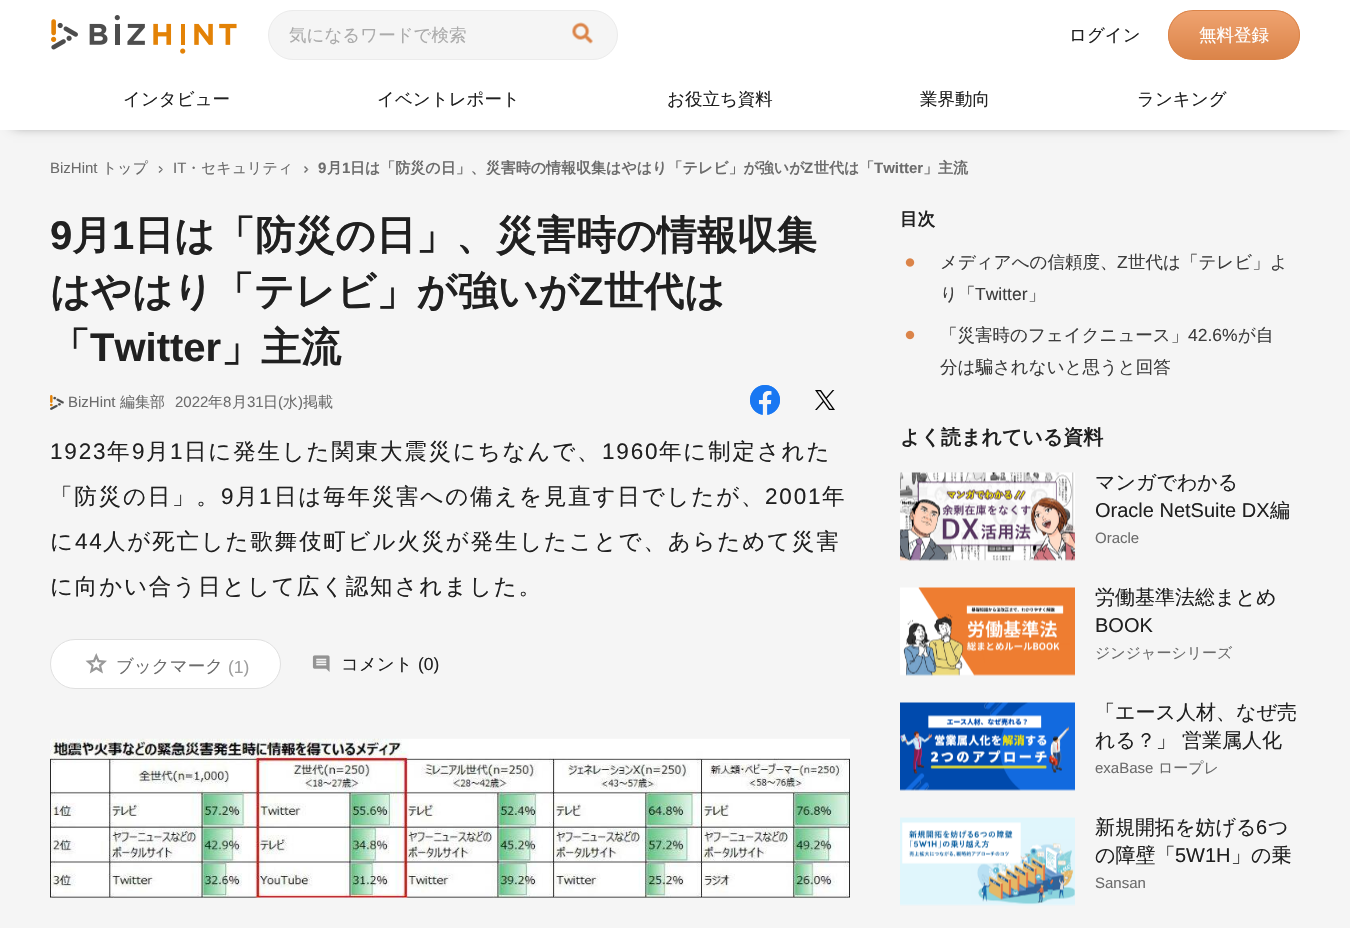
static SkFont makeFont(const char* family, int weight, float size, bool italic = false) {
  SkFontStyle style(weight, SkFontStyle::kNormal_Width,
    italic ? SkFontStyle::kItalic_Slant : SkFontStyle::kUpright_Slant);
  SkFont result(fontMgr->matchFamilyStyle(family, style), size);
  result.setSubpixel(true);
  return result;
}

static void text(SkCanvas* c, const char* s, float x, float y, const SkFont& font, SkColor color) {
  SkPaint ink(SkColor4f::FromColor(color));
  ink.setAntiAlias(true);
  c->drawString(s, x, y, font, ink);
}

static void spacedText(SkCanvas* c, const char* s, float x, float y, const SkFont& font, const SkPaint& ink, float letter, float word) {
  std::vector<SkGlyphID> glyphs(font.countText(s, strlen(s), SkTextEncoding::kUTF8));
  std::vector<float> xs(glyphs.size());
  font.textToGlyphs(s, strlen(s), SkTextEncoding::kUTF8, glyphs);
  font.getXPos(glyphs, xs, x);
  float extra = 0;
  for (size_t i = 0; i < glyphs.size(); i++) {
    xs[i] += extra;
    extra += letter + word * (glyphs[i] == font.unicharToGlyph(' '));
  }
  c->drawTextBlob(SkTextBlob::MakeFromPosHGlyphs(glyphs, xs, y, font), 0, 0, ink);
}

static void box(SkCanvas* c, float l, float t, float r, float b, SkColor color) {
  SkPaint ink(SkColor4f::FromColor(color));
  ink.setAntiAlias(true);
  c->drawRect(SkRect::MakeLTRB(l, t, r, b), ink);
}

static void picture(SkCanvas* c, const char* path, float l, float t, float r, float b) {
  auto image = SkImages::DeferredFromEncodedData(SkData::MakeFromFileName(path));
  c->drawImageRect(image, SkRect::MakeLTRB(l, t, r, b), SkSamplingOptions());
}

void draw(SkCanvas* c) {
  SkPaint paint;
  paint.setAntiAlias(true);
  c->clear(0xfff5f5f5);
  paint.setColor(0x99000000);
  paint.setMaskFilter(SkMaskFilter::MakeBlur(kNormal_SkBlurStyle, 6));
  c->drawRect(SkRect::MakeLTRB(13, 20, 1338, 125), paint);
  paint.setMaskFilter(nullptr);
  box(c, 0, 0, 1350, 130, 0xffffffff);
  picture(c, "img_01.png", 51, 15, 237, 54);
  paint.setColor(0xfff5f5f5);
  c->drawRoundRect(SkRect::MakeLTRB(268.5f, 10.5f, 617.5f, 59.5f), 24.5f, 24.5f, paint);
  paint.setStyle(SkPaint::kStroke_Style);
  paint.setStrokeWidth(1);
  paint.setColor(0xffebebeb);
  c->drawRoundRect(SkRect::MakeLTRB(268.5f, 10.5f, 617.5f, 59.5f), 24.5f, 24.5f, paint);
  SkFont face1 = makeFont("WenQuanYi Zen Hei", 500, 17.5f);
  text(c, "気になるワードで検索", 289, 41, face1, 0xffababab);
  picture(c, "img_02.png", 572, 22, 593, 44);
  text(c, "ログイン", 1069, 41, face1, 0xff202020);
  c->save();
  c->clipPath(SkPathBuilder().moveTo(1193, 10).lineTo(1275, 10).cubicTo(1289, 10, 1300, 21, 1300, 35).cubicTo(1300, 49, 1289, 60, 1275, 60).lineTo(1193, 60).cubicTo(1179, 60, 1168, 49, 1168, 35).cubicTo(1168, 21, 1179, 10, 1193, 10).close().detach(), true);
  paint.setStyle(SkPaint::kFill_Style);
  {
    const SkColor colors[] = {0xffefa370, 0xffdb8449};
    const float stops[] = {0, 1};
    const SkPoint ends[] = {{1234, 11}, {1234, 59}};
    paint.setShader(SkGradientShader::MakeLinear(ends, colors, stops, 2, SkTileMode::kClamp));
    paint.setAlpha(255);
  }
  c->drawRect(SkRect::MakeLTRB(1168, 11, 1300, 59), paint);
  c->restore();
  paint.setStyle(SkPaint::kStroke_Style);
  paint.setShader(nullptr);
  paint.setColor(0xffdb8449);
  c->drawRoundRect(SkRect::MakeLTRB(1168.5f, 10.5f, 1299.5f, 59.5f), 24.5f, 24.5f, paint);
  text(c, "無料登録", 1199, 41, face1, 0xffffffff);
  text(c, "インタビュー", 123, 105, face1, 0xff202020);
  text(c, "イベントレポート", 377, 105, face1, 0xff202020);
  text(c, "お役立ち資料", 667, 105, face1, 0xff202020);
  text(c, "業界動向", 920, 105, face1, 0xff202020);
  text(c, "ランキング", 1137, 105, face1, 0xff202020);
  SkFont face2 = makeFont("Liberation Sans", 400, 15);
  text(c, "BizHint", 50, 173, face2, 0xff6c6c6c);
  SkFont face3 = makeFont("WenQuanYi Zen Hei", 500, 15);
  text(c, "トップ", 102, 173, face3, 0xff6c6c6c);
  paint.setStyle(SkPaint::kFill_Style);
  paint.setColor(0xff6c6c6c);
  c->drawPath(SkPathBuilder().moveTo(159.5f, 166).lineTo(163, 169.5f).lineTo(161.5f, 169.5f).lineTo(158.5f, 167).close().detach(), paint);
  c->drawPath(SkPathBuilder().moveTo(163, 169.5f).lineTo(159.5f, 173).lineTo(158.5f, 172).lineTo(161.5f, 169.5f).close().detach(), paint);
  text(c, "IT", 173, 173, face2, 0xff6c6c6c);
  text(c, "・セキュリティ", 186, 173, face3, 0xff6c6c6c);
  c->drawPath(SkPathBuilder().moveTo(305, 166).lineTo(308.5f, 169.5f).lineTo(306.5f, 169.5f).lineTo(304, 167).close().detach(), paint);
  c->drawPath(SkPathBuilder().moveTo(308.5f, 169.5f).lineTo(305, 173).lineTo(304, 172).lineTo(306.5f, 169.5f).close().detach(), paint);
  SkFont face4 = makeFont("Liberation Sans", 700, 15);
  text(c, "9", 318, 173, face4, 0xff6c6c6c);
  SkFont face5 = makeFont("WenQuanYi Zen Hei", 700, 15);
  text(c, "月", 327, 173, face5, 0xff6c6c6c);
  text(c, "1", 342, 173, face4, 0xff6c6c6c);
  c->save();
  c->clipRect(SkRect::MakeLTRB(319, 160, 1275, 175));
  text(c, "日は「防災の日」、災害時の情報収集はやはり「テレビ」が強いが", 350, 173, face5, 0xff6c6c6c);
  c->restore();
  text(c, "Z", 804, 173, face4, 0xff6c6c6c);
  c->save();
  c->clipRect(SkRect::MakeLTRB(319, 160, 1275, 175));
  text(c, "世代は「", 814, 173, face5, 0xff6c6c6c);
  c->restore();
  text(c, "Twitter", 874, 173, face4, 0xff6c6c6c);
  text(c, "」主流", 923, 173, face5, 0xff6c6c6c);
  SkFont face6 = makeFont("Liberation Sans", 700, 40);
  text(c, "9", 50, 249, face6, 0xff202020);
  SkFont face7 = makeFont("WenQuanYi Zen Hei", 700, 40);
  text(c, "月", 72, 249, face7, 0xff202020);
  text(c, "1", 112, 249, face6, 0xff202020);
  text(c, "日は「防災の日」、災害時の情報収集", 134, 249, face7, 0xff202020);
  text(c, "はやはり「テレビ」が強いが", 50, 305, face7, 0xff202020);
  text(c, "Z", 579, 305, face6, 0xff202020);
  text(c, "世代は", 604, 305, face7, 0xff202020);
  text(c, "「", 50, 361, face7, 0xff202020);
  text(c, "Twitter", 90, 361, face6, 0xff202020);
  text(c, "」主流", 221, 361, face7, 0xff202020);
  picture(c, "img_03.png", 50, 395, 64, 410);
  text(c, "BizHint", 68, 407, face2, 0xff6c6c6c);
  text(c, "編集部", 120, 407, face3, 0xff6c6c6c);
  text(c, "2022", 175, 407, face2, 0xff6c6c6c);
  text(c, "年", 208, 407, face3, 0xff6c6c6c);
  text(c, "8", 223, 407, face2, 0xff6c6c6c);
  text(c, "月", 232, 407, face3, 0xff6c6c6c);
  text(c, "31", 247, 407, face2, 0xff6c6c6c);
  text(c, "日", 263, 407, face3, 0xff6c6c6c);
  text(c, "(", 278, 407, face2, 0xff6c6c6c);
  text(c, "水", 283, 407, face3, 0xff6c6c6c);
  text(c, ")", 298, 407, face2, 0xff6c6c6c);
  text(c, "掲載", 303, 407, face3, 0xff6c6c6c);
  picture(c, "img_04.png", 750, 385, 780, 415);
  picture(c, "img_05.png", 815, 390, 835, 410);
  SkFont face8 = makeFont("Liberation Sans", 400, 22.5f);
  paint.setColor(0xff202020);
  spacedText(c, "1923", 50, 459, face8, paint, 1.8f, 0);
  SkFont face9 = makeFont("WenQuanYi Zen Hei", 500, 22.5f);
  spacedText(c, "年", 107, 459, face9, paint, 1.8f, 0);
  spacedText(c, "9", 132, 459, face8, paint, 1.8f, 0);
  spacedText(c, "月", 146, 459, face9, paint, 1.8f, 0);
  spacedText(c, "1", 170, 459, face8, paint, 1.8f, 0);
  spacedText(c, "日に発生した関東大震災にちなんで、", 184, 459, face9, paint, 1.8f, 0);
  spacedText(c, "1960", 602, 459, face8, paint, 1.8f, 0);
  spacedText(c, "年に制定された", 659, 459, face9, paint, 1.8f, 0);
  spacedText(c, "「防災の日」。", 50, 504, face9, paint, 1.8f, 0);
  spacedText(c, "9", 221, 504, face8, paint, 1.8f, 0);
  spacedText(c, "月", 235, 504, face9, paint, 1.8f, 0);
  spacedText(c, "1", 259, 504, face8, paint, 1.8f, 0);
  spacedText(c, "日は毎年災害への備えを見直す日でしたが、", 274, 504, face9, paint, 1.8f, 0);
  spacedText(c, "2001", 765, 504, face8, paint, 1.8f, 0);
  spacedText(c, "年", 822, 504, face9, paint, 1.8f, 0);
  spacedText(c, "に", 50, 549, face9, paint, 1.8f, 0);
  spacedText(c, "44", 75, 549, face8, paint, 1.8f, 0);
  spacedText(c, "人が死亡した歌舞伎町ビル火災が発生したことで、あらためて災害", 103, 549, face9, paint, 1.8f, 0);
  spacedText(c, "に向かい合う日として広く認知されました。", 50, 594, face9, paint, 1.8f, 0);
  paint.setColor(0xffffffff);
  c->drawRoundRect(SkRect::MakeLTRB(50.5f, 639.5f, 280.5f, 688.5f), 24.5f, 24.5f, paint);
  paint.setStyle(SkPaint::kStroke_Style);
  paint.setColor(0xffe0e0e0);
  c->drawRoundRect(SkRect::MakeLTRB(50.5f, 639.5f, 280.5f, 688.5f), 24.5f, 24.5f, paint);
  picture(c, "img_06.png", 85, 653, 107, 674);
  text(c, "ブックマーク", 116, 672, face1, 0xff6c6c6c);
  SkFont face10 = makeFont("Liberation Sans", 400, 17.5f);
  text(c, "(1)", 228, 673, face10, 0xff9e9e9e);
  picture(c, "img_07.png", 312, 655, 330, 672);
  text(c, "コメント", 341, 670, face1, 0xff202020);
  text(c, "(0)", 418, 670, face10, 0xff202020);
  picture(c, "img_08.png", 50, 738, 850, 898);
  SkFont face11 = makeFont("WenQuanYi Zen Hei", 700, 17.5f);
  text(c, "目次", 900, 225, face11, 0xff202020);
  picture(c, "img_09.png", 905, 258, 915, 267);
  text(c, "メディアへの信頼度、", 940, 268, face1, 0xff3d3d3d);
  text(c, "Z", 1117, 268, face10, 0xff3d3d3d);
  text(c, "世代は「テレビ」よ", 1128, 268, face1, 0xff3d3d3d);
  text(c, "り「", 940, 300, face1, 0xff3d3d3d);
  text(c, "Twitter", 975, 300, face10, 0xff3d3d3d);
  text(c, "」", 1028, 300, face1, 0xff3d3d3d);
  picture(c, "img_10.png", 905, 330, 915, 340);
  text(c, "「災害時のフェイクニュース」", 940, 341, face1, 0xff3d3d3d);
  text(c, "42.6%", 1188, 341, face10, 0xff3d3d3d);
  text(c, "が自", 1238, 341, face1, 0xff3d3d3d);
  text(c, "分は騙されないと思うと回答", 940, 373, face1, 0xff3d3d3d);
  SkFont face12 = makeFont("WenQuanYi Zen Hei", 700, 20);
  text(c, "よく読まれている資料", 900, 444, face12, 0xff202020);
  picture(c, "img_11.png", 900, 472, 1075, 561);
  SkFont face13 = makeFont("WenQuanYi Zen Hei", 500, 20);
  text(c, "マンガでわかる", 1095, 489, face13, 0xff202020);
  SkFont face14 = makeFont("Liberation Sans", 400, 20);
  text(c, "Oracle NetSuite DX", 1095, 517, face14, 0xff202020);
  text(c, "編", 1270, 517, face13, 0xff202020);
  text(c, "Oracle", 1095, 543, face2, 0xff6c6c6c);
  picture(c, "img_12.png", 900, 587, 1075, 676);
  text(c, "労働基準法総まとめ", 1095, 604, face13, 0xff202020);
  text(c, "BOOK", 1095, 632, face14, 0xff202020);
  text(c, "ジンジャーシリーズ", 1095, 658, face3, 0xff6c6c6c);
  picture(c, "img_13.png", 900, 702, 1075, 791);
  text(c, "「エース人材、なぜ売", 1095, 719, face13, 0xff202020);
  text(c, "れる？」 営業属人化", 1095, 747, face13, 0xff202020);
  text(c, "exaBase", 1095, 773, face2, 0xff6c6c6c);
  text(c, "ロープレ", 1158, 773, face3, 0xff6c6c6c);
  picture(c, "img_14.png", 900, 817, 1075, 906);
  text(c, "新規開拓を妨げる", 1095, 834, face13, 0xff202020);
  text(c, "6", 1256, 834, face14, 0xff202020);
  text(c, "つ", 1268, 834, face13, 0xff202020);
  text(c, "の障壁「", 1095, 862, face13, 0xff202020);
  text(c, "5W1H", 1175, 862, face14, 0xff202020);
  text(c, "」の乗", 1231, 862, face13, 0xff202020);
  text(c, "Sansan", 1095, 888, face2, 0xff6c6c6c);
}
